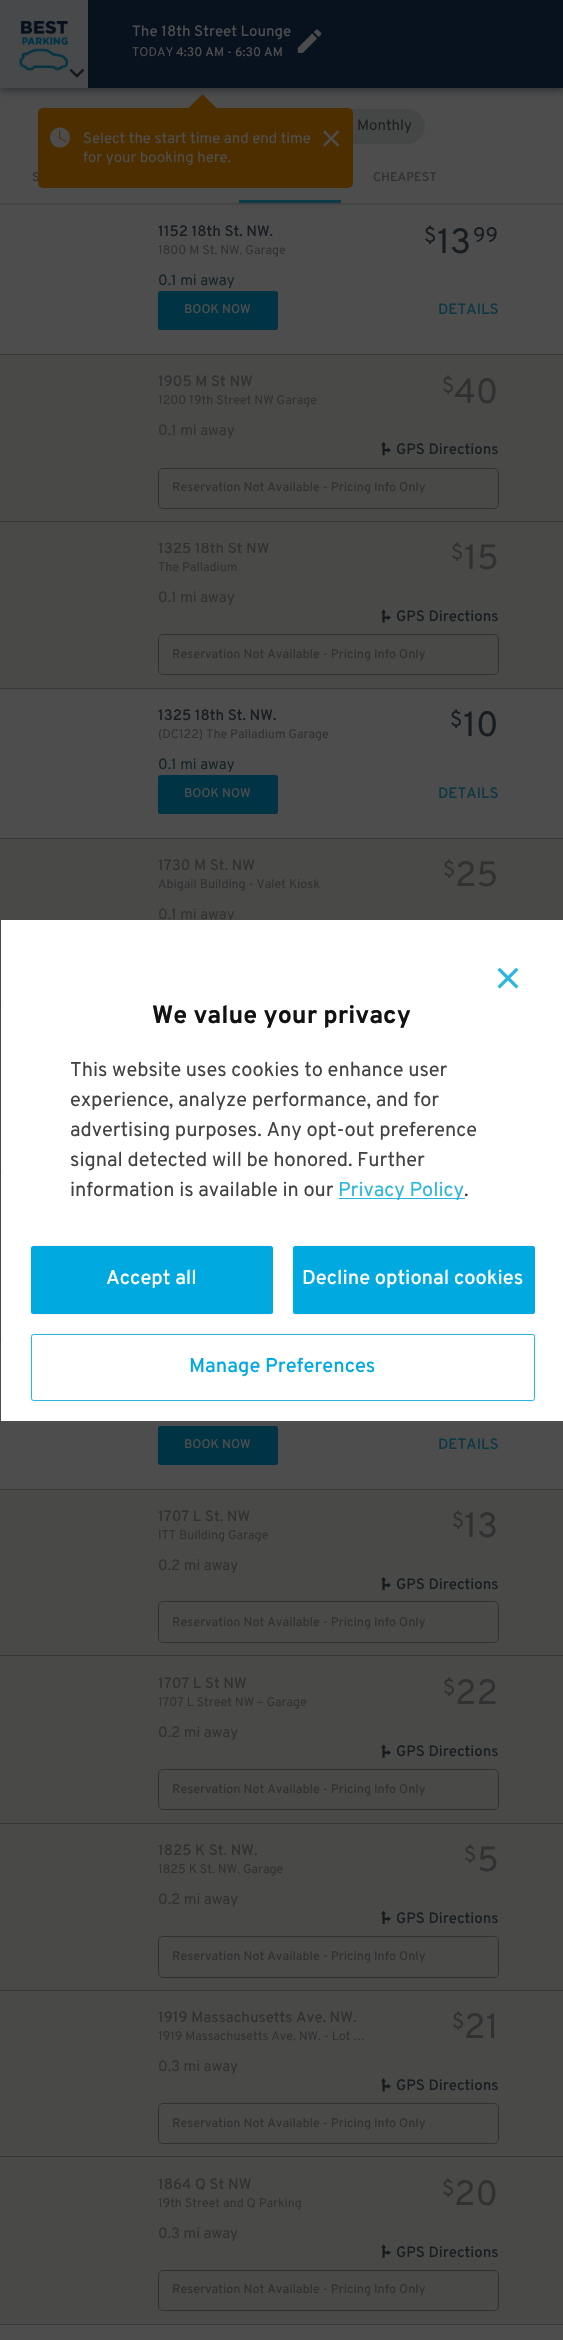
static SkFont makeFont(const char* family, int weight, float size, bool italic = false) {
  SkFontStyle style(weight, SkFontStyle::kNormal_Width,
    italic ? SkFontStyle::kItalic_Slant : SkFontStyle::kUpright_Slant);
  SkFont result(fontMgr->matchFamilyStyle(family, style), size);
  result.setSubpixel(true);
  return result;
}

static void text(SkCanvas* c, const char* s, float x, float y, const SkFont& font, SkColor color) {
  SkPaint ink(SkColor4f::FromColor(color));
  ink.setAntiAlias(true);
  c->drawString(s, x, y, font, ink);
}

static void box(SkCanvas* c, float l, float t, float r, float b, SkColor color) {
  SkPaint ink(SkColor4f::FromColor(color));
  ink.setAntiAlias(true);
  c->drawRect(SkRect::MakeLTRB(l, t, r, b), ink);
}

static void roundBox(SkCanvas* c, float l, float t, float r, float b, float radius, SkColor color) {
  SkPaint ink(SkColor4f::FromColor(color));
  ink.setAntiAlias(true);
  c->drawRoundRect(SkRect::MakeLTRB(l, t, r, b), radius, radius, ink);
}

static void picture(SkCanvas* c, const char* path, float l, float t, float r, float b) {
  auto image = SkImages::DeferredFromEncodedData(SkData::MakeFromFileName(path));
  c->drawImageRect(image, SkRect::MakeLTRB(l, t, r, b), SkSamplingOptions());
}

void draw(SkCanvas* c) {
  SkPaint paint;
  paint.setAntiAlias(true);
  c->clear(0xff4d4d4d);
  roundBox(c, 250, 109, 425, 144, 17.5f, 0xff454747);
  SkFont face1 = makeFont("Overpass", 500, 12.5f);
  text(c, "S", 32, 181, face1, 0xff313131);
  roundBox(c, 38, 108, 353, 188, 5, 0xff4d2e00);
  paint.setColor(0xff4d2e00);
  c->drawPath(SkPathBuilder().moveTo(217.5f, 109).lineTo(187.5f, 109).lineTo(202.5f, 94).close().detach(), paint);
  paint.setColor(0xff282c2f);
  paint.setMaskFilter(SkMaskFilter::MakeBlur(kNormal_SkBlurStyle, 4));
  c->drawRect(SkRect::MakeLTRB(0, 3, 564, 90), paint);
  paint.setMaskFilter(nullptr);
  box(c, 88, 0, 563, 88, 0xff08111e);
  box(c, 0, 0, 88, 88, 0xff47494a);
  picture(c, "img_01.png", 19, 20, 69, 71);
  picture(c, "img_02.png", 69, 68, 85, 78);
  SkFont face2 = makeFont("Overpass", 500, 15);
  text(c, "The 18th Street Lounge", 132, 36, face2, 0xff4d4d4d);
  SkFont face3 = makeFont("Overpass", 400, 12.5f);
  text(c, "TODAY", 132, 56, face3, 0xff4d4d4d);
  text(c, "4:30 AM", 176, 56, face1, 0xff4d4d4d);
  text(c, "-", 227, 56, face3, 0xff4d4d4d);
  text(c, "6:30 AM", 235, 56, face1, 0xff4d4d4d);
  picture(c, "img_03.png", 297, 29, 322, 53);
  SkFont face4 = makeFont("Overpass", 400, 15);
  text(c, "Monthly", 357, 130, face4, 0xff1e1e1e);
  box(c, 0, 204, 563, 205, 0xff464545);
  box(c, 0, 203, 563, 204, 0xff434343);
  text(c, "CHEAPEST", 373, 181, face1, 0xff313131);
  box(c, 239, 200, 341, 203, 0xff0e3946);
  box(c, 0, 354, 563, 355, 0xff383838);
  text(c, "1152 18th St. NW.", 158, 236, face2, 0xff171d20);
  text(c, "1800 M St. NW. Garage", 158, 254, face3, 0xff313131);
  text(c, "0.1 mi away", 158, 285, face4, 0xff152427);
  SkFont face5 = makeFont("Overpass", 400, 21);
  text(c, "$", 424, 242, face5, 0xff171d20);
  SkFont face6 = makeFont("Overpass", 400, 35);
  text(c, "13", 437, 253, face6, 0xff171d20);
  text(c, "99", 473, 242, face5, 0xff171d20);
  roundBox(c, 158, 291, 278, 330, 2.5f, 0xff003343);
  text(c, "BOOK NOW", 184, 313, face1, 0xff4d4d4d);
  text(c, "DETAILS", 438, 314, face2, 0xff0d3743);
  box(c, 0, 355, 563, 688, 0xff494948);
  box(c, 0, 521, 563, 522, 0xff383838);
  text(c, "1905 M St NW", 158, 386, face2, 0xff313131);
  text(c, "1200 19th Street NW Garage", 158, 404, face3, 0xff313131);
  text(c, "0.1 mi away", 158, 435, face4, 0xff313131);
  text(c, "$", 442, 392, face5, 0xff313131);
  text(c, "40", 454, 403, face6, 0xff313131);
  picture(c, "img_04.png", 381, 442, 391, 456);
  text(c, "GPS Directions", 396, 454, face2, 0xff171d20);
  paint.setStyle(SkPaint::kStroke_Style);
  paint.setStrokeWidth(1);
  paint.setColor(0xff313131);
  c->drawRoundRect(SkRect::MakeLTRB(158.5f, 468.5f, 498.5f, 508.5f), 4.5f, 4.5f, paint);
  text(c, "Reservation Not Available - Pricing Info Only", 172, 491, face1, 0xff313131);
  box(c, 0, 688, 563, 689, 0xff383838);
  c->save();
  c->clipRect(SkRect::MakeLTRB(158, 543, 373, 558));
  text(c, "1325 18th St NW", 158, 553, face2, 0xff313131);
  c->restore();
  text(c, "The Palladium", 158, 571, face3, 0xff313131);
  text(c, "0.1 mi away", 158, 602, face4, 0xff313131);
  text(c, "$", 451, 559, face5, 0xff313131);
  text(c, "15", 464, 569, face6, 0xff313131);
  picture(c, "img_05.png", 381, 609, 391, 623);
  text(c, "GPS Directions", 396, 621, face2, 0xff171d20);
  c->drawRoundRect(SkRect::MakeLTRB(158.5f, 634.5f, 498.5f, 674.5f), 4.5f, 4.5f, paint);
  text(c, "Reservation Not Available - Pricing Info Only", 172, 658, face1, 0xff313131);
  box(c, 0, 838, 563, 839, 0xff383838);
  text(c, "1325 18th St. NW.", 158, 720, face2, 0xff171d20);
  text(c, "(DC122) The Palladium Garage", 158, 738, face3, 0xff313131);
  text(c, "0.1 mi away", 158, 769, face4, 0xff152427);
  text(c, "$", 450, 726, face5, 0xff171d20);
  text(c, "10", 463, 736, face6, 0xff171d20);
  roundBox(c, 158, 775, 278, 814, 2.5f, 0xff003343);
  text(c, "BOOK NOW", 184, 797, face1, 0xff4d4d4d);
  text(c, "DETAILS", 438, 798, face2, 0xff0d3743);
  box(c, 0, 839, 563, 1005, 0xff494948);
  box(c, 0, 1005, 1, 1006, 0xff383838);
  text(c, "1730 M St. NW", 158, 870, face2, 0xff313131);
  text(c, "Abigail Building - Valet Kiosk", 158, 888, face3, 0xff313131);
  text(c, "0.1 mi away", 158, 919, face4, 0xff313131);
  text(c, "$", 443, 876, face5, 0xff313131);
  text(c, "25", 455, 886, face6, 0xff313131);
  box(c, 0, 1006, 1, 1339, 0xff494948);
  box(c, 0, 1171, 1, 1172, 0xff383838);
  box(c, 0, 1339, 1, 1340, 0xff383838);
  box(c, 0, 1489, 563, 1490, 0xff383838);
  roundBox(c, 158, 1426, 278, 1465, 2.5f, 0xff003343);
  text(c, "BOOK NOW", 184, 1448, face1, 0xff4d4d4d);
  text(c, "DETAILS", 438, 1449, face2, 0xff0d3743);
  box(c, 0, 1490, 563, 1655, 0xff494948);
  box(c, 0, 1655, 563, 1656, 0xff383838);
  text(c, "1707 L St. NW", 158, 1521, face2, 0xff313131);
  text(c, "ITT Building Garage", 158, 1539, face3, 0xff313131);
  text(c, "0.2 mi away", 158, 1570, face4, 0xff313131);
  text(c, "$", 452, 1527, face5, 0xff313131);
  text(c, "13", 464, 1537, face6, 0xff313131);
  picture(c, "img_04.png", 381, 1577, 391, 1591);
  text(c, "GPS Directions", 396, 1589, face2, 0xff171d20);
  c->drawRoundRect(SkRect::MakeLTRB(158.5f, 1601.5f, 498.5f, 1642.5f), 4.5f, 4.5f, paint);
  text(c, "Reservation Not Available - Pricing Info Only", 172, 1626, face1, 0xff313131);
  box(c, 0, 1656, 563, 1823, 0xff494948);
  box(c, 0, 1823, 563, 1824, 0xff383838);
  text(c, "1707 L St NW", 158, 1688, face2, 0xff313131);
  text(c, "1707 L Street NW – Garage", 158, 1706, face3, 0xff313131);
  text(c, "0.2 mi away", 158, 1737, face4, 0xff313131);
  text(c, "$", 443, 1694, face5, 0xff313131);
  text(c, "22", 455, 1704, face6, 0xff313131);
  picture(c, "img_05.png", 381, 1744, 391, 1758);
  text(c, "GPS Directions", 396, 1756, face2, 0xff171d20);
  c->drawRoundRect(SkRect::MakeLTRB(158.5f, 1769.5f, 498.5f, 1809.5f), 4.5f, 4.5f, paint);
  text(c, "Reservation Not Available - Pricing Info Only", 172, 1793, face1, 0xff313131);
  box(c, 0, 1824, 563, 1990, 0xff494948);
  box(c, 0, 1990, 563, 1991, 0xff383838);
  text(c, "1825 K St. NW.", 158, 1855, face2, 0xff313131);
  text(c, "1825 K St. NW. Garage", 158, 1873, face3, 0xff313131);
  text(c, "0.2 mi away", 158, 1904, face4, 0xff313131);
  text(c, "$", 464, 1861, face5, 0xff313131);
  text(c, "5", 477, 1871, face6, 0xff313131);
  picture(c, "img_06.png", 381, 1910, 391, 1924);
  text(c, "GPS Directions", 396, 1923, face2, 0xff171d20);
  c->drawRoundRect(SkRect::MakeLTRB(158.5f, 1936.5f, 498.5f, 1977.5f), 4.5f, 4.5f, paint);
  text(c, "Reservation Not Available - Pricing Info Only", 172, 1960, face1, 0xff313131);
  box(c, 0, 1991, 563, 2324, 0xff494948);
  box(c, 0, 2156, 563, 2157, 0xff383838);
  text(c, "1919 Massachusetts Ave. NW.", 158, 2022, face2, 0xff313131);
  text(c, "1919 Massachusetts Ave. NW. - Lot …", 158, 2040, face3, 0xff313131);
  text(c, "0.3 mi away", 158, 2071, face4, 0xff313131);
  text(c, "$", 452, 2028, face5, 0xff313131);
  text(c, "21", 464, 2038, face6, 0xff313131);
  picture(c, "img_07.png", 381, 2078, 391, 2092);
  text(c, "GPS Directions", 396, 2090, face2, 0xff171d20);
  c->drawRoundRect(SkRect::MakeLTRB(158.5f, 2103.5f, 498.5f, 2143.5f), 4.5f, 4.5f, paint);
  text(c, "Reservation Not Available - Pricing Info Only", 172, 2127, face1, 0xff313131);
  box(c, 0, 2324, 563, 2325, 0xff383838);
  text(c, "1864 Q St NW", 158, 2189, face2, 0xff313131);
  text(c, "19th Street and Q Parking", 158, 2207, face3, 0xff313131);
  text(c, "0.3 mi away", 158, 2238, face4, 0xff313131);
  text(c, "$", 442, 2195, face5, 0xff313131);
  text(c, "20", 454, 2205, face6, 0xff313131);
  picture(c, "img_05.png", 381, 2244, 391, 2258);
  text(c, "GPS Directions", 396, 2257, face2, 0xff171d20);
  c->drawRoundRect(SkRect::MakeLTRB(158.5f, 2270.5f, 498.5f, 2310.5f), 4.5f, 4.5f, paint);
  text(c, "Reservation Not Available - Pricing Info Only", 172, 2293, face1, 0xff313131);
  picture(c, "img_08.png", 50, 127, 70, 148);
  text(c, "Select the start time and end time", 83, 143, face4, 0xff4d4d4d);
  text(c, "for your booking here.", 83, 162, face4, 0xff4d4d4d);
  picture(c, "img_09.png", 323, 130, 340, 147);
  box(c, 1, 920, 563, 1421, 0xffffffff);
  picture(c, "img_10.png", 497, 967, 519, 989);
  SkFont face7 = makeFont("Overpass", 700, 25);
  text(c, "We value your privacy", 152, 1023, face7, 0xff121212);
  SkFont face8 = makeFont("Overpass", 400, 20);
  text(c, "This website uses cookies to enhance user", 70, 1076, face8, 0xff424243);
  text(c, "experience, analyze performance, and for", 70, 1106, face8, 0xff424243);
  text(c, "advertising purposes. Any opt-out preference", 70, 1136, face8, 0xff424243);
  text(c, "signal detected will be honored. Further", 70, 1166, face8, 0xff424243);
  text(c, "information is available in our", 70, 1196, face8, 0xff424243);
  box(c, 339, 1198, 465, 1199, 0xff2ab7df);
  text(c, "Privacy Policy", 338, 1196, face8, 0xff2ab7df);
  text(c, ".", 464, 1196, face8, 0xff424243);
  paint.setStyle(SkPaint::kFill_Style);
  paint.setColor(0x1f000000);
  paint.setMaskFilter(SkMaskFilter::MakeBlur(kNormal_SkBlurStyle, 1));
  c->drawRoundRect(SkRect::MakeLTRB(31, 1246, 273, 1314), 2.5f, 2.5f, paint);
  paint.setMaskFilter(nullptr);
  roundBox(c, 31, 1246, 273, 1314, 2.5f, 0xff00a9e0);
  SkFont face9 = makeFont("Overpass", 500, 20);
  text(c, "Accept all", 106, 1284, face9, 0xffffffff);
  paint.setMaskFilter(SkMaskFilter::MakeBlur(kNormal_SkBlurStyle, 1));
  c->drawRoundRect(SkRect::MakeLTRB(293, 1246, 535, 1314), 2.5f, 2.5f, paint);
  paint.setMaskFilter(nullptr);
  roundBox(c, 293, 1246, 535, 1314, 2.5f, 0xff00a9e0);
  text(c, "Decline optional cookies", 302, 1284, face9, 0xffffffff);
  c->save();
  c->clipPath(SkPathBuilder(SkPathFillType::kEvenOdd).moveTo(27, 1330).lineTo(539, 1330).lineTo(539, 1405).lineTo(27, 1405).close().moveTo(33.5f, 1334).lineTo(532.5f, 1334).cubicTo(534, 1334, 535, 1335, 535, 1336.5f).lineTo(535, 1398.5f).cubicTo(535, 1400, 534, 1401, 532.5f, 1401).lineTo(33.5f, 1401).cubicTo(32, 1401, 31, 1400, 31, 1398.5f).lineTo(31, 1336.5f).cubicTo(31, 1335, 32, 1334, 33.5f, 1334).close().detach(), true);
  paint.setMaskFilter(SkMaskFilter::MakeBlur(kNormal_SkBlurStyle, 1));
  c->drawRoundRect(SkRect::MakeLTRB(31, 1334, 535, 1401), 2.5f, 2.5f, paint);
  paint.setMaskFilter(nullptr);
  c->restore();
  paint.setStyle(SkPaint::kStroke_Style);
  paint.setColor(0xff2ab7df);
  c->drawRoundRect(SkRect::MakeLTRB(31.5f, 1334.5f, 534.5f, 1400.5f), 2, 2, paint);
  text(c, "Manage Preferences", 189, 1372, face9, 0xff00a9e0);
}
